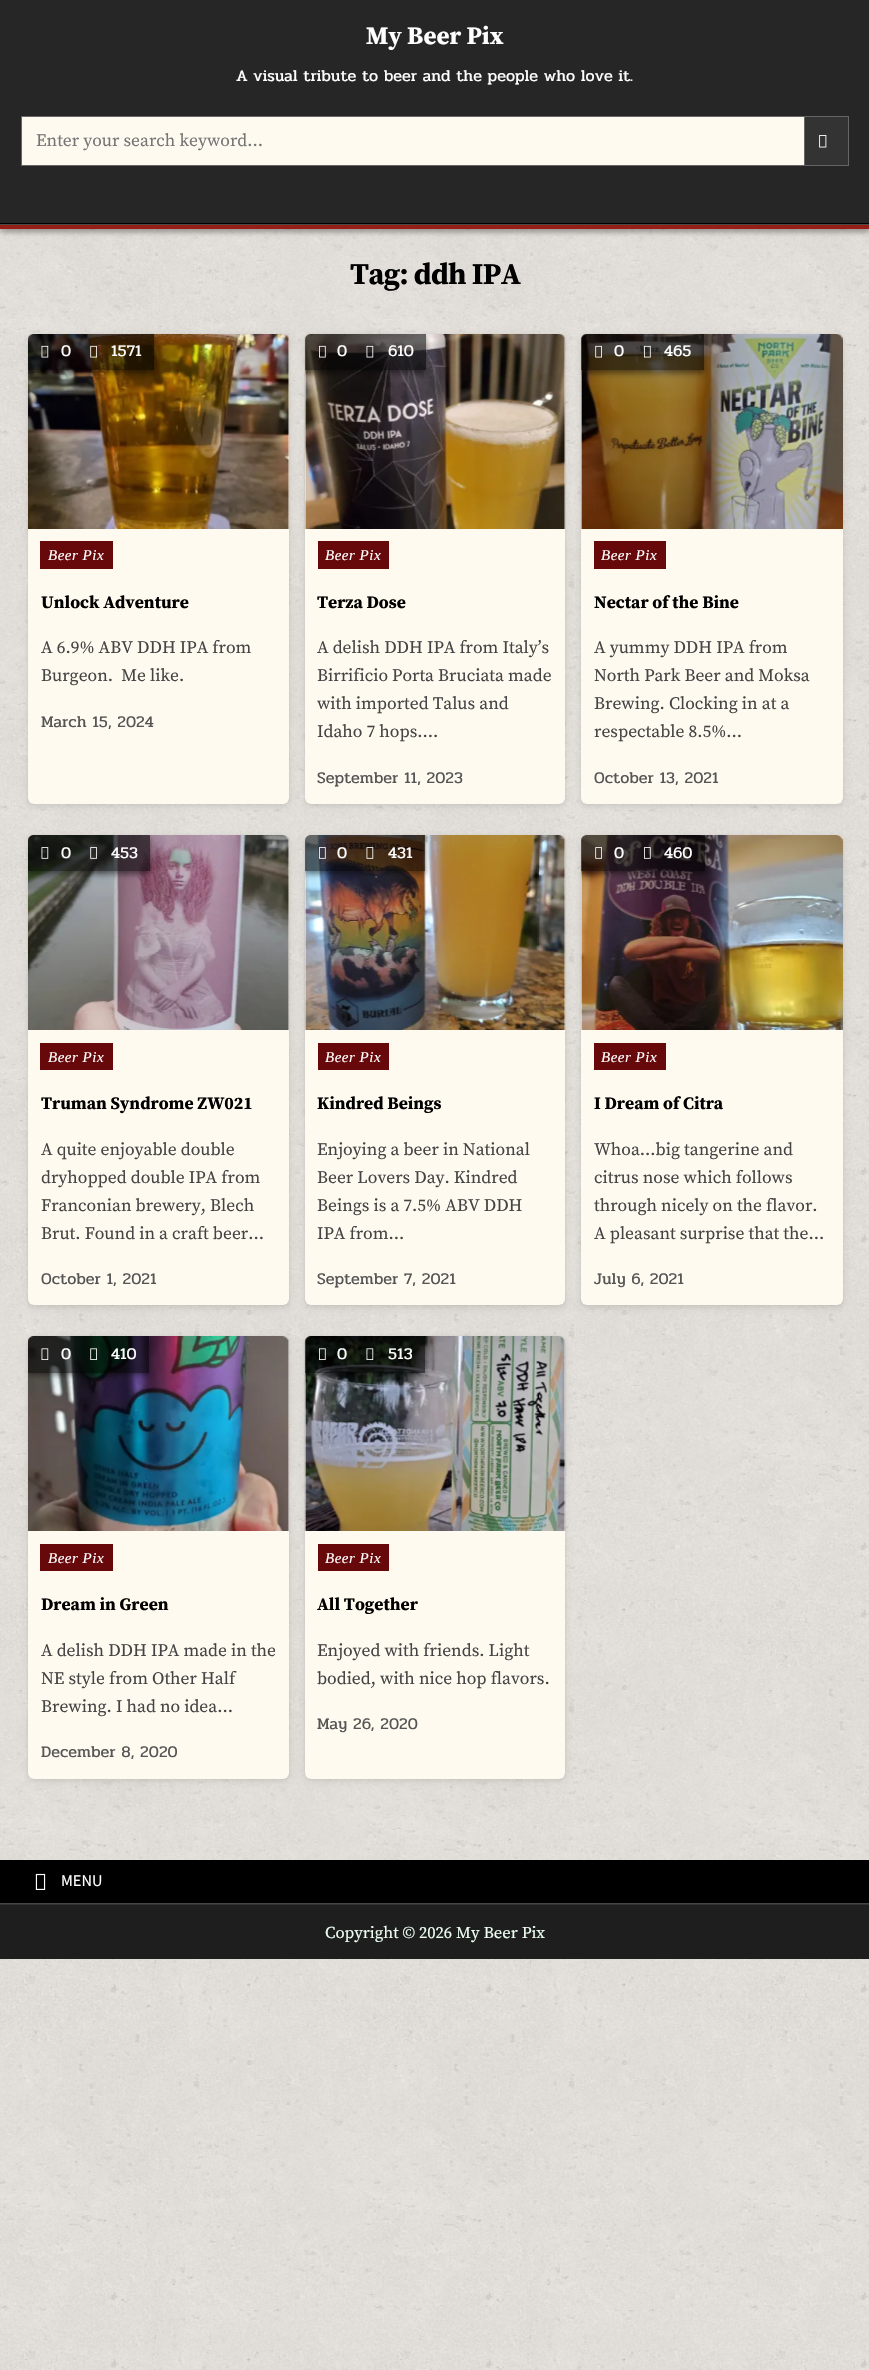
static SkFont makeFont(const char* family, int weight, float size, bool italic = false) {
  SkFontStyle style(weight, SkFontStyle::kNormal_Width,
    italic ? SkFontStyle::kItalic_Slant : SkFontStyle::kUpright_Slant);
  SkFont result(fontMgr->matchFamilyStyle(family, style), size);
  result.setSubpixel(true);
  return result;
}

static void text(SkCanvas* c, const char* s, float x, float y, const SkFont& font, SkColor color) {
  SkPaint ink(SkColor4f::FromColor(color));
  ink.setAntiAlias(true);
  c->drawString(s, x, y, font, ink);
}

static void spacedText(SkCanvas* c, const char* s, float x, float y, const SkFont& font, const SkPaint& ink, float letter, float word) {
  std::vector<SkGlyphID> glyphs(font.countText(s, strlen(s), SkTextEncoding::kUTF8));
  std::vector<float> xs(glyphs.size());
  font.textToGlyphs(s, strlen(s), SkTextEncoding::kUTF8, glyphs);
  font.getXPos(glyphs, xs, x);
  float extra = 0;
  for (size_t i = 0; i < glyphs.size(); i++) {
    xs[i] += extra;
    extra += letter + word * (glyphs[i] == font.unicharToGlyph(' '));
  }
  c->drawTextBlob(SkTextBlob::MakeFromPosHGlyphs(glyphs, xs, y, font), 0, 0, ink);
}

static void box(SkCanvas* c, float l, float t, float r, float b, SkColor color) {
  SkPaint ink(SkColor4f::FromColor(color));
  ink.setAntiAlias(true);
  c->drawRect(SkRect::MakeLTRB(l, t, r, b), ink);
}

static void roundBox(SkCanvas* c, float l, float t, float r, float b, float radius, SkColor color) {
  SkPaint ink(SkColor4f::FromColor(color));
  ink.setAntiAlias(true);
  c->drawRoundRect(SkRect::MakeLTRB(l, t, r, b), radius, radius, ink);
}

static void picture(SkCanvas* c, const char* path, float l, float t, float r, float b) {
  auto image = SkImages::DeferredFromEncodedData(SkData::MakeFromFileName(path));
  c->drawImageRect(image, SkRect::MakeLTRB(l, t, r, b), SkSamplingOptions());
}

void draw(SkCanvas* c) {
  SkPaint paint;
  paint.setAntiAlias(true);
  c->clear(0xffffffff);
  picture(c, "img_01.png", 0, 229, 869, 2370);
  paint.setColor(0x80000000);
  paint.setMaskFilter(SkMaskFilter::MakeBlur(kNormal_SkBlurStyle, 3));
  c->drawRect(SkRect::MakeLTRB(0, 226, 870, 231), paint);
  paint.setMaskFilter(nullptr);
  box(c, 0, 0, 869, 223, 0xff262626);
  box(c, 0, 223, 869, 224, 0xff000000);
  SkFont face1 = makeFont("Source Serif Pro", 700, 25);
  text(c, "My Beer Pix", 366, 44, face1, 0xffffffff);
  SkFont face2 = makeFont("Pridi", 400, 16.25f);
  text(c, "A visual tribute to beer and the people who love it.", 236, 81, face2, 0xffffffff);
  box(c, 22, 117, 804, 165, 0xfffffaf0);
  paint.setStyle(SkPaint::kStroke_Style);
  paint.setStrokeWidth(1);
  paint.setColor(0xff666666);
  c->drawRect(SkRect::MakeLTRB(21.5f, 116.5f, 848.5f, 165.5f), paint);
  SkFont face3 = makeFont("Source Serif Pro", 400, 17.5f);
  text(c, "Enter your search keyword...", 36, 146, face3, 0xff757575);
  paint.setStyle(SkPaint::kFill_Style);
  paint.setColor(0xff333333);
  c->drawRect(SkRect::MakeLTRB(804.5f, 116.5f, 848.5f, 165.5f), paint);
  paint.setStyle(SkPaint::kStroke_Style);
  paint.setColor(0xff666666);
  c->drawRect(SkRect::MakeLTRB(804.5f, 116.5f, 848.5f, 165.5f), paint);
  picture(c, "img_02.png", 819, 135, 827, 148);
  box(c, 0, 224, 869, 225, 0xff4c4949);
  box(c, 0, 225, 869, 229, 0xff951f17);
  SkFont face4 = makeFont("Source Serif Pro", 700, 30);
  paint.setStyle(SkPaint::kFill_Style);
  paint.setColor(0xff000000);
  spacedText(c, "Tag: ddh IPA", 350, 284, face4, paint, -0.6f, 0);
  paint.setColor(0x1a000000);
  paint.setMaskFilter(SkMaskFilter::MakeBlur(kNormal_SkBlurStyle, 3));
  c->drawRoundRect(SkRect::MakeLTRB(28, 336, 289, 806), 6, 6, paint);
  paint.setMaskFilter(nullptr);
  paint.setMaskFilter(SkMaskFilter::MakeBlur(kNormal_SkBlurStyle, 0.5f));
  c->drawRoundRect(SkRect::MakeLTRB(28, 334, 289, 804), 6, 6, paint);
  paint.setMaskFilter(nullptr);
  roundBox(c, 28, 334, 289, 804, 6, 0xfffffaf0);
  picture(c, "img_03.png", 28, 334, 289, 529);
  c->save();
  c->clipPath(SkPathBuilder().moveTo(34, 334).lineTo(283, 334).cubicTo(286.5f, 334, 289, 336.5f, 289, 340).lineTo(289, 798).cubicTo(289, 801.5f, 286.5f, 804, 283, 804).lineTo(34, 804).cubicTo(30.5f, 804, 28, 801.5f, 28, 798).lineTo(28, 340).cubicTo(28, 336.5f, 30.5f, 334, 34, 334).close().detach(), true);
  c->clipPath(SkPathBuilder(SkPathFillType::kEvenOdd).moveTo(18, 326).lineTo(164, 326).lineTo(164, 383).lineTo(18, 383).close().moveTo(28, 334).lineTo(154, 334).lineTo(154, 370).lineTo(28, 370).close().detach(), true);
  paint.setColor(0x80000000);
  paint.setMaskFilter(SkMaskFilter::MakeBlur(kNormal_SkBlurStyle, 3));
  c->drawRect(SkRect::MakeLTRB(28, 336, 154, 373), paint);
  paint.setMaskFilter(nullptr);
  c->restore();
  paint.setColor(0x99000000);
  c->drawPath(SkPathBuilder().moveTo(34, 334).lineTo(154, 334).lineTo(154, 370).lineTo(28, 370).lineTo(28, 340).cubicTo(28, 336.5f, 30.5f, 334, 34, 334).close().detach(), paint);
  picture(c, "img_04.png", 41, 345, 49, 358);
  text(c, "0", 61, 356, face2, 0xffffffff);
  picture(c, "img_05.png", 90, 345, 97, 358);
  text(c, "1571", 111, 356, face2, 0xffffffff);
  box(c, 40, 541, 113, 569, 0xff67080b);
  SkFont face5 = makeFont("Liberation Serif", 400, 15, true);
  paint.setColor(0xffffffff);
  spacedText(c, "Beer Pix", 48, 560, face5, paint, 0.5f, 0);
  SkFont face6 = makeFont("Source Serif Pro", 700, 17.5f);
  text(c, "Unlock Adventure", 41, 608, face6, 0xff000000);
  text(c, "A 6.9% ABV DDH IPA from", 41, 653, face3, 0xff444444);
  text(c, "Burgeon.  Me like.", 41, 681, face3, 0xff444444);
  text(c, "March 15, 2024", 41, 727, face2, 0xff555555);
  paint.setColor(0x1a000000);
  paint.setMaskFilter(SkMaskFilter::MakeBlur(kNormal_SkBlurStyle, 3));
  c->drawRoundRect(SkRect::MakeLTRB(305, 336, 565, 806), 6, 6, paint);
  paint.setMaskFilter(nullptr);
  paint.setMaskFilter(SkMaskFilter::MakeBlur(kNormal_SkBlurStyle, 0.5f));
  c->drawRoundRect(SkRect::MakeLTRB(305, 334, 565, 804), 6, 6, paint);
  paint.setMaskFilter(nullptr);
  roundBox(c, 305, 334, 565, 804, 6, 0xfffffaf0);
  picture(c, "img_06.png", 304, 334, 566, 529);
  c->save();
  c->clipPath(SkPathBuilder().moveTo(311, 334).lineTo(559, 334).cubicTo(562.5f, 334, 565, 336.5f, 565, 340).lineTo(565, 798).cubicTo(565, 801.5f, 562.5f, 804, 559, 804).lineTo(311, 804).cubicTo(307.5f, 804, 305, 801.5f, 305, 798).lineTo(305, 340).cubicTo(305, 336.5f, 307.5f, 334, 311, 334).close().detach(), true);
  c->clipPath(SkPathBuilder(SkPathFillType::kEvenOdd).moveTo(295, 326).lineTo(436, 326).lineTo(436, 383).lineTo(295, 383).close().moveTo(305, 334).lineTo(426, 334).lineTo(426, 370).lineTo(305, 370).close().detach(), true);
  paint.setColor(0x80000000);
  paint.setMaskFilter(SkMaskFilter::MakeBlur(kNormal_SkBlurStyle, 3));
  c->drawRect(SkRect::MakeLTRB(305, 336, 426, 373), paint);
  paint.setMaskFilter(nullptr);
  c->restore();
  paint.setColor(0x99000000);
  c->drawPath(SkPathBuilder().moveTo(311, 334).lineTo(426, 334).lineTo(426, 370).lineTo(305, 370).lineTo(305, 340).cubicTo(305, 336.5f, 307.5f, 334, 311, 334).close().detach(), paint);
  picture(c, "img_07.png", 319, 345, 326, 358);
  text(c, "0", 337, 356, face2, 0xffffffff);
  picture(c, "img_08.png", 366, 345, 374, 358);
  text(c, "610", 388, 356, face2, 0xffffffff);
  box(c, 318, 541, 389, 569, 0xff67080b);
  paint.setColor(0xffffffff);
  spacedText(c, "Beer Pix", 325, 560, face5, paint, 0.5f, 0);
  text(c, "Terza Dose", 317, 608, face6, 0xff000000);
  text(c, "A delish DDH IPA from Italy’s", 317, 653, face3, 0xff444444);
  text(c, "Birrificio Porta Bruciata made", 317, 681, face3, 0xff444444);
  text(c, "with imported Talus and", 317, 709, face3, 0xff444444);
  text(c, "Idaho 7 hops….", 317, 737, face3, 0xff444444);
  text(c, "September 11, 2023", 317, 783, face2, 0xff555555);
  paint.setColor(0x1a000000);
  paint.setMaskFilter(SkMaskFilter::MakeBlur(kNormal_SkBlurStyle, 3));
  c->drawRoundRect(SkRect::MakeLTRB(581, 336, 843, 806), 6, 6, paint);
  paint.setMaskFilter(nullptr);
  paint.setMaskFilter(SkMaskFilter::MakeBlur(kNormal_SkBlurStyle, 0.5f));
  c->drawRoundRect(SkRect::MakeLTRB(581, 334, 843, 804), 6, 6, paint);
  paint.setMaskFilter(nullptr);
  roundBox(c, 581, 334, 843, 804, 6, 0xfffffaf0);
  picture(c, "img_09.png", 581, 334, 843, 529);
  c->save();
  c->clipPath(SkPathBuilder().moveTo(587, 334).lineTo(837, 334).cubicTo(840.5f, 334, 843, 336.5f, 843, 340).lineTo(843, 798).cubicTo(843, 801.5f, 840.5f, 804, 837, 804).lineTo(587, 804).cubicTo(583.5f, 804, 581, 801.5f, 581, 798).lineTo(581, 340).cubicTo(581, 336.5f, 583.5f, 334, 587, 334).close().detach(), true);
  c->clipPath(SkPathBuilder(SkPathFillType::kEvenOdd).moveTo(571, 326).lineTo(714, 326).lineTo(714, 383).lineTo(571, 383).close().moveTo(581, 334).lineTo(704, 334).lineTo(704, 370).lineTo(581, 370).close().detach(), true);
  paint.setColor(0x80000000);
  paint.setMaskFilter(SkMaskFilter::MakeBlur(kNormal_SkBlurStyle, 3));
  c->drawRect(SkRect::MakeLTRB(581, 336, 704, 373), paint);
  paint.setMaskFilter(nullptr);
  c->restore();
  paint.setColor(0x99000000);
  c->drawPath(SkPathBuilder().moveTo(587, 334).lineTo(704, 334).lineTo(704, 370).lineTo(581, 370).lineTo(581, 340).cubicTo(581, 336.5f, 583.5f, 334, 587, 334).close().detach(), paint);
  picture(c, "img_10.png", 595, 345, 602, 358);
  text(c, "0", 614, 356, face2, 0xffffffff);
  picture(c, "img_11.png", 644, 345, 651, 358);
  text(c, "465", 664, 356, face2, 0xffffffff);
  box(c, 594, 541, 666, 569, 0xff67080b);
  paint.setColor(0xffffffff);
  spacedText(c, "Beer Pix", 601, 560, face5, paint, 0.5f, 0);
  text(c, "Nectar of the Bine", 594, 608, face6, 0xff000000);
  text(c, "A yummy DDH IPA from", 594, 653, face3, 0xff444444);
  text(c, "North Park Beer and Moksa", 594, 681, face3, 0xff444444);
  text(c, "Brewing. Clocking in at a", 594, 709, face3, 0xff444444);
  text(c, "respectable 8.5%…", 594, 737, face3, 0xff444444);
  text(c, "October 13, 2021", 594, 783, face2, 0xff555555);
  paint.setColor(0x1a000000);
  paint.setMaskFilter(SkMaskFilter::MakeBlur(kNormal_SkBlurStyle, 3));
  c->drawRoundRect(SkRect::MakeLTRB(28, 838, 289, 1308), 6, 6, paint);
  paint.setMaskFilter(nullptr);
  paint.setMaskFilter(SkMaskFilter::MakeBlur(kNormal_SkBlurStyle, 0.5f));
  c->drawRoundRect(SkRect::MakeLTRB(28, 835, 289, 1305), 6, 6, paint);
  paint.setMaskFilter(nullptr);
  roundBox(c, 28, 835, 289, 1305, 6, 0xfffffaf0);
  picture(c, "img_12.png", 28, 835, 289, 1030);
  c->save();
  c->clipPath(SkPathBuilder().moveTo(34, 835).lineTo(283, 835).cubicTo(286.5f, 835, 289, 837.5f, 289, 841).lineTo(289, 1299).cubicTo(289, 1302.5f, 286.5f, 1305, 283, 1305).lineTo(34, 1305).cubicTo(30.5f, 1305, 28, 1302.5f, 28, 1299).lineTo(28, 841).cubicTo(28, 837.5f, 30.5f, 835, 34, 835).close().detach(), true);
  c->clipPath(SkPathBuilder(SkPathFillType::kEvenOdd).moveTo(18, 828).lineTo(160, 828).lineTo(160, 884).lineTo(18, 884).close().moveTo(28, 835).lineTo(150, 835).lineTo(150, 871).lineTo(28, 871).close().detach(), true);
  paint.setColor(0x80000000);
  paint.setMaskFilter(SkMaskFilter::MakeBlur(kNormal_SkBlurStyle, 3));
  c->drawRect(SkRect::MakeLTRB(28, 838, 150, 874), paint);
  paint.setMaskFilter(nullptr);
  c->restore();
  paint.setColor(0x99000000);
  c->drawPath(SkPathBuilder().moveTo(34, 835).lineTo(150, 835).lineTo(150, 871).lineTo(28, 871).lineTo(28, 841).cubicTo(28, 837.5f, 30.5f, 835, 34, 835).close().detach(), paint);
  picture(c, "img_13.png", 41, 847, 49, 859);
  text(c, "0", 61, 858, face2, 0xffffffff);
  picture(c, "img_14.png", 90, 847, 97, 859);
  text(c, "453", 111, 858, face2, 0xffffffff);
  box(c, 40, 1043, 113, 1070, 0xff67080b);
  paint.setColor(0xffffffff);
  spacedText(c, "Beer Pix", 48, 1062, face5, paint, 0.5f, 0);
  text(c, "Truman Syndrome ZW021", 41, 1109, face6, 0xff000000);
  text(c, "A quite enjoyable double", 41, 1155, face3, 0xff444444);
  text(c, "dryhopped double IPA from", 41, 1183, face3, 0xff444444);
  text(c, "Franconian brewery, Blech", 41, 1211, face3, 0xff444444);
  text(c, "Brut. Found in a craft beer…", 41, 1239, face3, 0xff444444);
  text(c, "October 1, 2021", 41, 1284, face2, 0xff555555);
  paint.setColor(0x1a000000);
  paint.setMaskFilter(SkMaskFilter::MakeBlur(kNormal_SkBlurStyle, 3));
  c->drawRoundRect(SkRect::MakeLTRB(305, 838, 565, 1308), 6, 6, paint);
  paint.setMaskFilter(nullptr);
  paint.setMaskFilter(SkMaskFilter::MakeBlur(kNormal_SkBlurStyle, 0.5f));
  c->drawRoundRect(SkRect::MakeLTRB(305, 835, 565, 1305), 6, 6, paint);
  paint.setMaskFilter(nullptr);
  roundBox(c, 305, 835, 565, 1305, 6, 0xfffffaf0);
  picture(c, "img_15.png", 304, 835, 566, 1030);
  c->save();
  c->clipPath(SkPathBuilder().moveTo(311, 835).lineTo(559, 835).cubicTo(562.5f, 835, 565, 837.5f, 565, 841).lineTo(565, 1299).cubicTo(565, 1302.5f, 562.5f, 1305, 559, 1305).lineTo(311, 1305).cubicTo(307.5f, 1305, 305, 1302.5f, 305, 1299).lineTo(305, 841).cubicTo(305, 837.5f, 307.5f, 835, 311, 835).close().detach(), true);
  c->clipPath(SkPathBuilder(SkPathFillType::kEvenOdd).moveTo(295, 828).lineTo(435, 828).lineTo(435, 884).lineTo(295, 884).close().moveTo(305, 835).lineTo(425, 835).lineTo(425, 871).lineTo(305, 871).close().detach(), true);
  paint.setColor(0x80000000);
  paint.setMaskFilter(SkMaskFilter::MakeBlur(kNormal_SkBlurStyle, 3));
  c->drawRect(SkRect::MakeLTRB(305, 838, 425, 874), paint);
  paint.setMaskFilter(nullptr);
  c->restore();
  paint.setColor(0x99000000);
  c->drawPath(SkPathBuilder().moveTo(311, 835).lineTo(425, 835).lineTo(425, 871).lineTo(305, 871).lineTo(305, 841).cubicTo(305, 837.5f, 307.5f, 835, 311, 835).close().detach(), paint);
  picture(c, "img_16.png", 319, 847, 326, 859);
  text(c, "0", 337, 858, face2, 0xffffffff);
  picture(c, "img_17.png", 366, 847, 374, 859);
  text(c, "431", 388, 858, face2, 0xffffffff);
  box(c, 318, 1043, 389, 1070, 0xff67080b);
  paint.setColor(0xffffffff);
  spacedText(c, "Beer Pix", 325, 1062, face5, paint, 0.5f, 0);
  text(c, "Kindred Beings", 317, 1109, face6, 0xff000000);
  text(c, "Enjoying a beer in National", 317, 1155, face3, 0xff444444);
  text(c, "Beer Lovers Day. Kindred", 317, 1183, face3, 0xff444444);
  text(c, "Beings is a 7.5% ABV DDH", 317, 1211, face3, 0xff444444);
  text(c, "IPA from…", 317, 1239, face3, 0xff444444);
  text(c, "September 7, 2021", 317, 1284, face2, 0xff555555);
  paint.setColor(0x1a000000);
  paint.setMaskFilter(SkMaskFilter::MakeBlur(kNormal_SkBlurStyle, 3));
  c->drawRoundRect(SkRect::MakeLTRB(581, 838, 843, 1308), 6, 6, paint);
  paint.setMaskFilter(nullptr);
  paint.setMaskFilter(SkMaskFilter::MakeBlur(kNormal_SkBlurStyle, 0.5f));
  c->drawRoundRect(SkRect::MakeLTRB(581, 835, 843, 1305), 6, 6, paint);
  paint.setMaskFilter(nullptr);
  roundBox(c, 581, 835, 843, 1305, 6, 0xfffffaf0);
  picture(c, "img_18.png", 581, 835, 843, 1030);
  c->save();
  c->clipPath(SkPathBuilder().moveTo(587, 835).lineTo(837, 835).cubicTo(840.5f, 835, 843, 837.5f, 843, 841).lineTo(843, 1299).cubicTo(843, 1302.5f, 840.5f, 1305, 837, 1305).lineTo(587, 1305).cubicTo(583.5f, 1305, 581, 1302.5f, 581, 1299).lineTo(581, 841).cubicTo(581, 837.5f, 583.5f, 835, 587, 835).close().detach(), true);
  c->clipPath(SkPathBuilder(SkPathFillType::kEvenOdd).moveTo(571, 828).lineTo(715, 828).lineTo(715, 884).lineTo(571, 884).close().moveTo(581, 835).lineTo(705, 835).lineTo(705, 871).lineTo(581, 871).close().detach(), true);
  paint.setColor(0x80000000);
  paint.setMaskFilter(SkMaskFilter::MakeBlur(kNormal_SkBlurStyle, 3));
  c->drawRect(SkRect::MakeLTRB(581, 838, 705, 874), paint);
  paint.setMaskFilter(nullptr);
  c->restore();
  paint.setColor(0x99000000);
  c->drawPath(SkPathBuilder().moveTo(587, 835).lineTo(705, 835).lineTo(705, 871).lineTo(581, 871).lineTo(581, 841).cubicTo(581, 837.5f, 583.5f, 835, 587, 835).close().detach(), paint);
  picture(c, "img_19.png", 595, 847, 602, 859);
  text(c, "0", 614, 858, face2, 0xffffffff);
  picture(c, "img_20.png", 644, 847, 651, 859);
  text(c, "460", 664, 858, face2, 0xffffffff);
  box(c, 594, 1043, 666, 1070, 0xff67080b);
  paint.setColor(0xffffffff);
  spacedText(c, "Beer Pix", 601, 1062, face5, paint, 0.5f, 0);
  text(c, "I Dream of Citra", 594, 1109, face6, 0xff000000);
  text(c, "Whoa…big tangerine and", 594, 1155, face3, 0xff444444);
  text(c, "citrus nose which follows", 594, 1183, face3, 0xff444444);
  text(c, "through nicely on the flavor.", 594, 1211, face3, 0xff444444);
  text(c, "A pleasant surprise that the…", 594, 1239, face3, 0xff444444);
  text(c, "July 6, 2021", 594, 1284, face2, 0xff555555);
  paint.setColor(0x1a000000);
  paint.setMaskFilter(SkMaskFilter::MakeBlur(kNormal_SkBlurStyle, 3));
  c->drawRoundRect(SkRect::MakeLTRB(28, 1339, 289, 1781), 6, 6, paint);
  paint.setMaskFilter(nullptr);
  paint.setMaskFilter(SkMaskFilter::MakeBlur(kNormal_SkBlurStyle, 0.5f));
  c->drawRoundRect(SkRect::MakeLTRB(28, 1336, 289, 1779), 6, 6, paint);
  paint.setMaskFilter(nullptr);
  roundBox(c, 28, 1336, 289, 1779, 6, 0xfffffaf0);
  picture(c, "img_21.png", 28, 1336, 289, 1531);
  c->save();
  c->clipPath(SkPathBuilder().moveTo(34, 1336).lineTo(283, 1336).cubicTo(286.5f, 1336, 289, 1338.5f, 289, 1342).lineTo(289, 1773).cubicTo(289, 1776.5f, 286.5f, 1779, 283, 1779).lineTo(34, 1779).cubicTo(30.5f, 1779, 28, 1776.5f, 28, 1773).lineTo(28, 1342).cubicTo(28, 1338.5f, 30.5f, 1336, 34, 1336).close().detach(), true);
  c->clipPath(SkPathBuilder(SkPathFillType::kEvenOdd).moveTo(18, 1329).lineTo(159, 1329).lineTo(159, 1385).lineTo(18, 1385).close().moveTo(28, 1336).lineTo(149, 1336).lineTo(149, 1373).lineTo(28, 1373).close().detach(), true);
  paint.setColor(0x80000000);
  paint.setMaskFilter(SkMaskFilter::MakeBlur(kNormal_SkBlurStyle, 3));
  c->drawRect(SkRect::MakeLTRB(28, 1339, 149, 1375), paint);
  paint.setMaskFilter(nullptr);
  c->restore();
  paint.setColor(0x99000000);
  c->drawPath(SkPathBuilder().moveTo(34, 1336).lineTo(149, 1336).lineTo(149, 1373).lineTo(28, 1373).lineTo(28, 1342).cubicTo(28, 1338.5f, 30.5f, 1336, 34, 1336).close().detach(), paint);
  picture(c, "img_22.png", 41, 1348, 49, 1360);
  text(c, "0", 61, 1359, face2, 0xffffffff);
  picture(c, "img_23.png", 90, 1348, 97, 1360);
  text(c, "410", 111, 1359, face2, 0xffffffff);
  box(c, 40, 1544, 113, 1571, 0xff67080b);
  paint.setColor(0xffffffff);
  spacedText(c, "Beer Pix", 48, 1563, face5, paint, 0.5f, 0);
  text(c, "Dream in Green", 41, 1610, face6, 0xff000000);
  text(c, "A delish DDH IPA made in the", 41, 1656, face3, 0xff444444);
  text(c, "NE style from Other Half", 41, 1684, face3, 0xff444444);
  text(c, "Brewing. I had no idea…", 41, 1712, face3, 0xff444444);
  text(c, "December 8, 2020", 41, 1757, face2, 0xff555555);
  paint.setColor(0x1a000000);
  paint.setMaskFilter(SkMaskFilter::MakeBlur(kNormal_SkBlurStyle, 3));
  c->drawRoundRect(SkRect::MakeLTRB(305, 1339, 565, 1781), 6, 6, paint);
  paint.setMaskFilter(nullptr);
  paint.setMaskFilter(SkMaskFilter::MakeBlur(kNormal_SkBlurStyle, 0.5f));
  c->drawRoundRect(SkRect::MakeLTRB(305, 1336, 565, 1779), 6, 6, paint);
  paint.setMaskFilter(nullptr);
  roundBox(c, 305, 1336, 565, 1779, 6, 0xfffffaf0);
  picture(c, "img_24.png", 304, 1336, 566, 1531);
  c->save();
  c->clipPath(SkPathBuilder().moveTo(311, 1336).lineTo(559, 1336).cubicTo(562.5f, 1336, 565, 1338.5f, 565, 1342).lineTo(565, 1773).cubicTo(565, 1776.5f, 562.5f, 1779, 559, 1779).lineTo(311, 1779).cubicTo(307.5f, 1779, 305, 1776.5f, 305, 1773).lineTo(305, 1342).cubicTo(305, 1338.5f, 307.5f, 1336, 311, 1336).close().detach(), true);
  c->clipPath(SkPathBuilder(SkPathFillType::kEvenOdd).moveTo(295, 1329).lineTo(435, 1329).lineTo(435, 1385).lineTo(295, 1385).close().moveTo(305, 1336).lineTo(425, 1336).lineTo(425, 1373).lineTo(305, 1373).close().detach(), true);
  paint.setColor(0x80000000);
  paint.setMaskFilter(SkMaskFilter::MakeBlur(kNormal_SkBlurStyle, 3));
  c->drawRect(SkRect::MakeLTRB(305, 1339, 425, 1375), paint);
  paint.setMaskFilter(nullptr);
  c->restore();
  paint.setColor(0x99000000);
  c->drawPath(SkPathBuilder().moveTo(311, 1336).lineTo(425, 1336).lineTo(425, 1373).lineTo(305, 1373).lineTo(305, 1342).cubicTo(305, 1338.5f, 307.5f, 1336, 311, 1336).close().detach(), paint);
  picture(c, "img_25.png", 319, 1348, 326, 1360);
  text(c, "0", 337, 1359, face2, 0xffffffff);
  picture(c, "img_26.png", 366, 1348, 374, 1360);
  text(c, "513", 388, 1359, face2, 0xffffffff);
  box(c, 318, 1544, 389, 1571, 0xff67080b);
  paint.setColor(0xffffffff);
  spacedText(c, "Beer Pix", 325, 1563, face5, paint, 0.5f, 0);
  text(c, "All Together", 317, 1610, face6, 0xff000000);
  text(c, "Enjoyed with friends. Light", 317, 1656, face3, 0xff444444);
  text(c, "bodied, with nice hop flavors.", 317, 1684, face3, 0xff444444);
  text(c, "May 26, 2020", 317, 1729, face2, 0xff555555);
  box(c, 0, 1860, 869, 1903, 0xff000000);
  box(c, 0, 1903, 869, 1904, 0xff444444);
  picture(c, "img_27.png", 35, 1873, 46, 1890);
  SkFont face7 = makeFont("Source Sans Pro", 400, 16.25f);
  text(c, "MENU", 61, 1886, face7, 0xffffffff);
  box(c, 0, 1905, 869, 1959, 0xff1e1e1e);
  box(c, 0, 1904, 869, 1905, 0xff333333);
  SkFont face8 = makeFont("Source Serif Pro", 400, 16.6f);
  text(c, "Copyright © 2026 My Beer Pix", 325, 1938, face8, 0xffecfff1);
}
